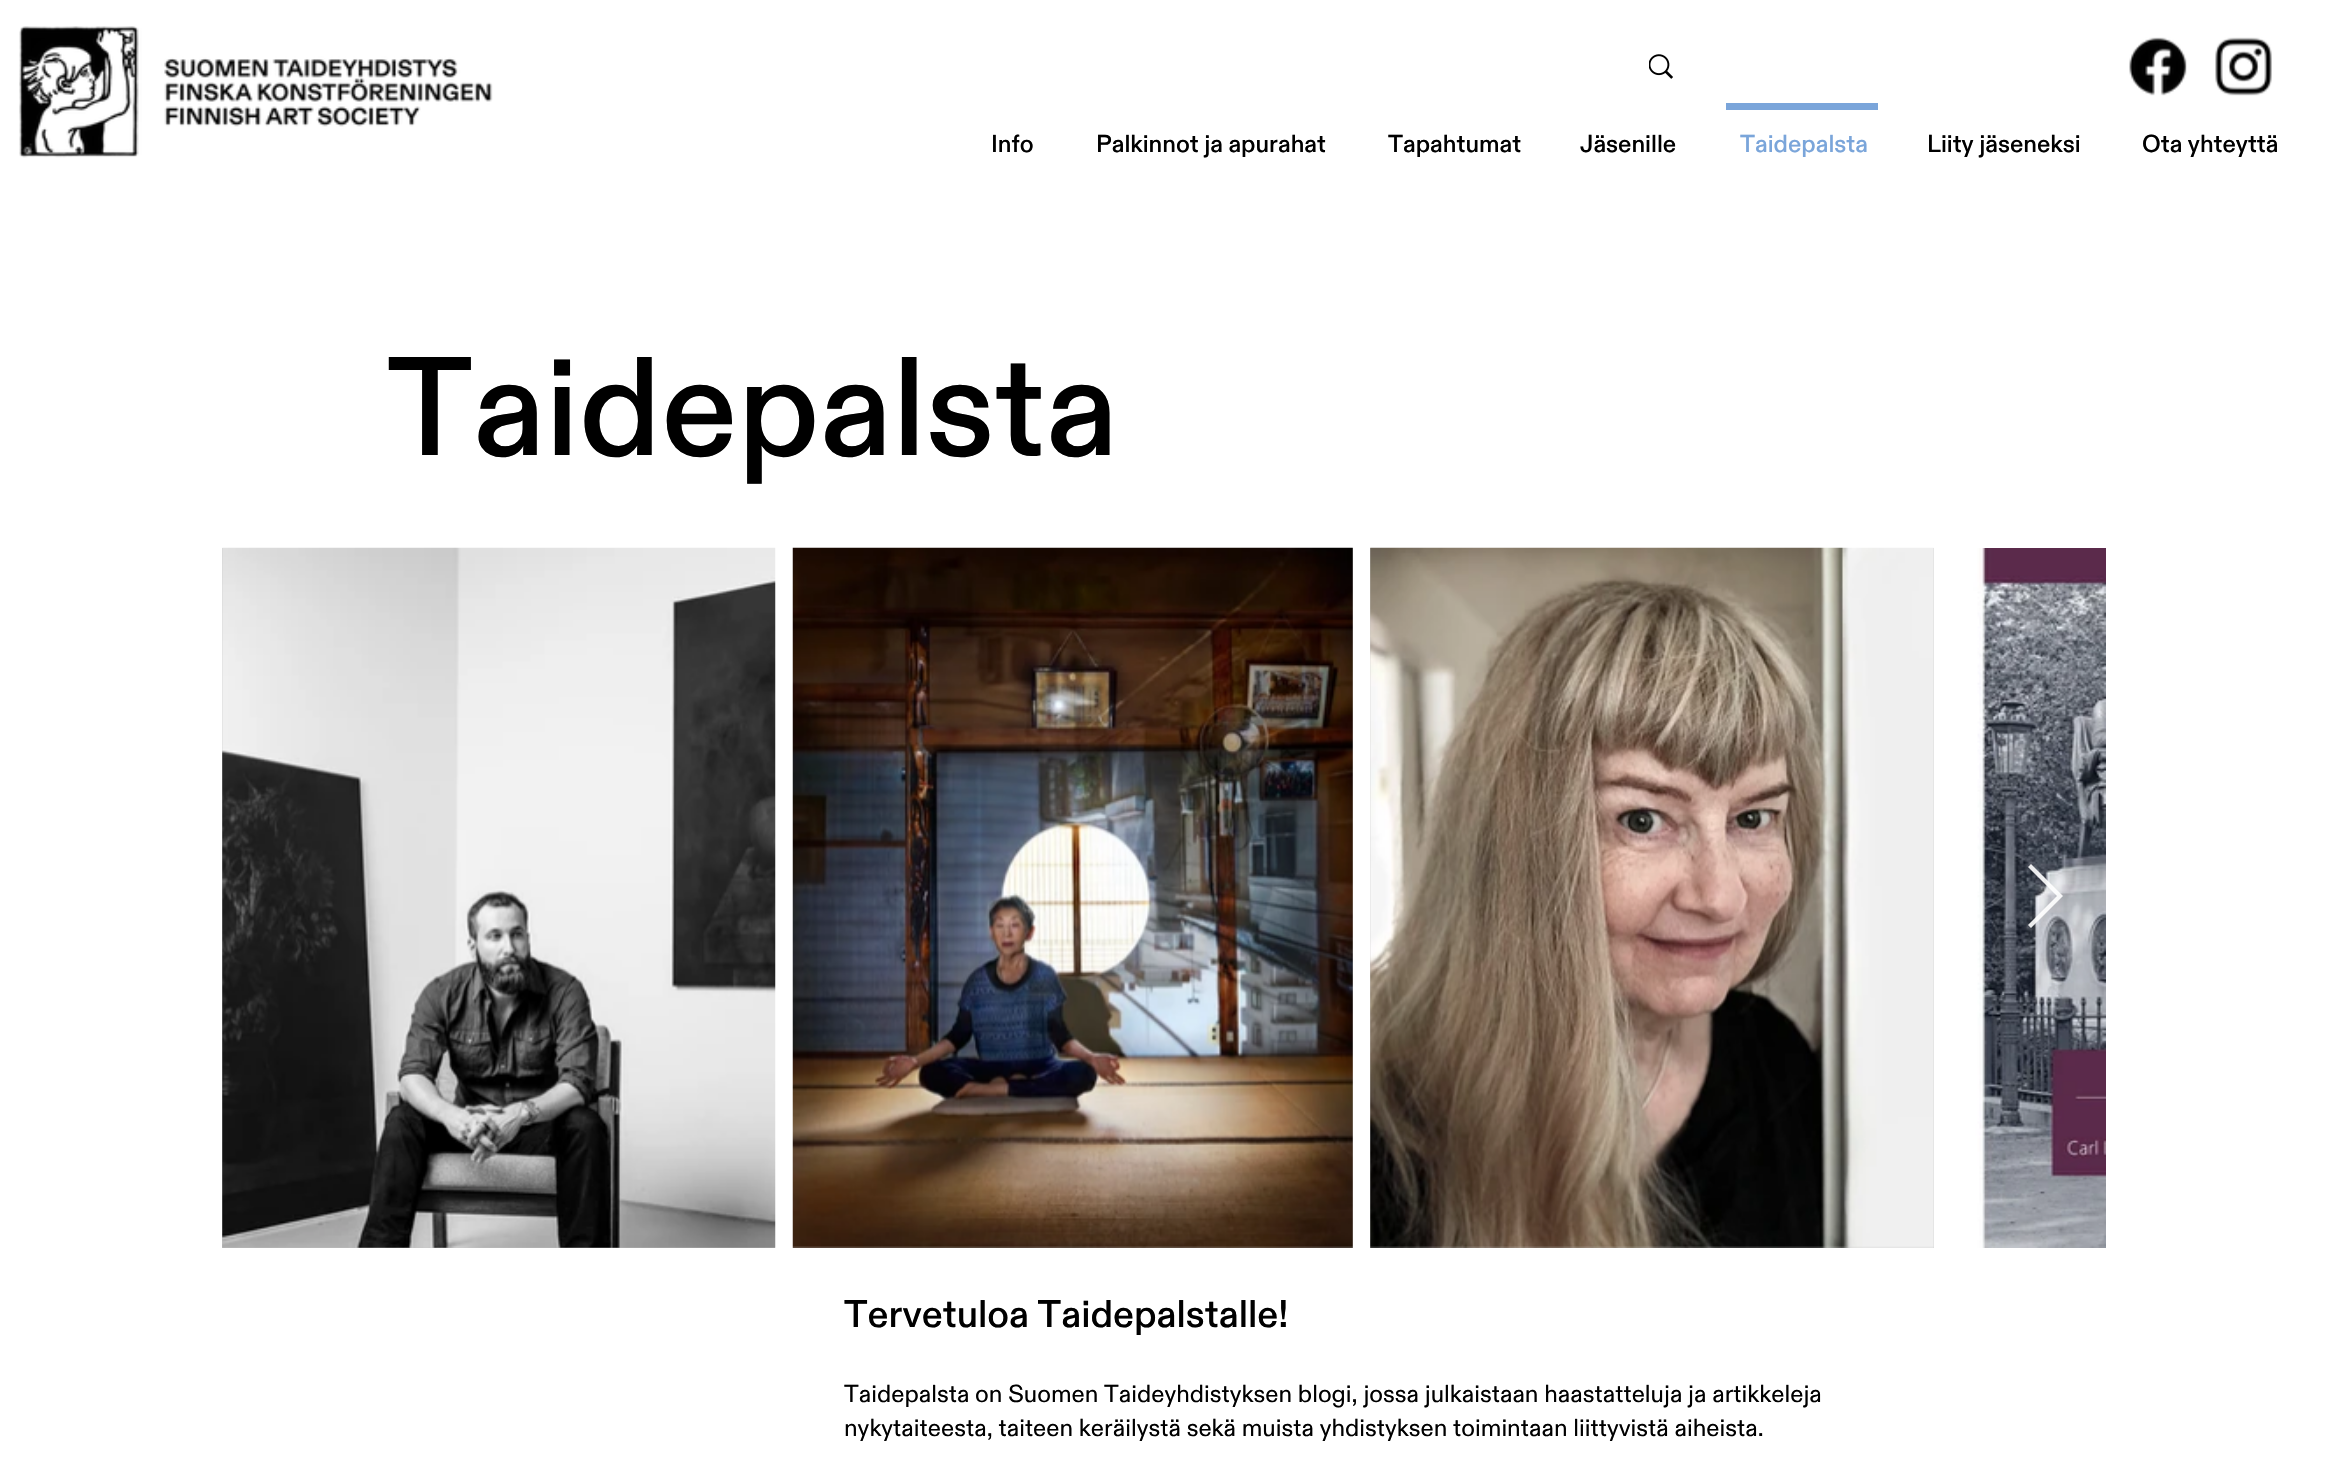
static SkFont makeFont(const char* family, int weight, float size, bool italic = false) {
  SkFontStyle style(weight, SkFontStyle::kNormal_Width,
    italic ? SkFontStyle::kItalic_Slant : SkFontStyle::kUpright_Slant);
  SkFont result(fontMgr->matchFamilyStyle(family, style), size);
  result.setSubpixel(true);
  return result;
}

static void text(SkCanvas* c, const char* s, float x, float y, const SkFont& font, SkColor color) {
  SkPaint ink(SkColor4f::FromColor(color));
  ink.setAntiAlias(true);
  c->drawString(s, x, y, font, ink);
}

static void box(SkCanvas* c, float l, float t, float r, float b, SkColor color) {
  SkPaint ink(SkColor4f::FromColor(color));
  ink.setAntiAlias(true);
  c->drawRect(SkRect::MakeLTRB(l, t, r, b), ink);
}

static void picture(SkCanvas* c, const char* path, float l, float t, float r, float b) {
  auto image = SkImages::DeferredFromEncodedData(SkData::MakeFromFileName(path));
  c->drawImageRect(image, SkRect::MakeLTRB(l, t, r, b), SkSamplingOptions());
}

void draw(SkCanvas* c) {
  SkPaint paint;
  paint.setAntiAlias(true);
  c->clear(0xffffffff);
  picture(c, "img_01.png", 19, 26, 493, 158);
  picture(c, "img_02.png", 1649, 54, 1673, 79);
  picture(c, "img_03.png", 2129, 37, 2187, 96);
  picture(c, "img_04.png", 2215, 37, 2272, 96);
  SkFont face1 = makeFont("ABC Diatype", 500, 24.5f);
  text(c, "Info", 991, 152, face1, 0xff000000);
  text(c, "Palkinnot ja apurahat", 1096, 152, face1, 0xff000000);
  text(c, "Tapahtumat", 1388, 152, face1, 0xff000000);
  text(c, "Jäsenille", 1580, 152, face1, 0xff000000);
  box(c, 1726, 103, 1878, 110, 0xff7aa5da);
  text(c, "Taidepalsta", 1740, 152, face1, 0xff7aa5da);
  text(c, "Liity jäseneksi", 1927, 152, face1, 0xff000000);
  text(c, "Ota yhteyttä", 2142, 152, face1, 0xff000000);
  SkFont face2 = makeFont("ABC Diatype", 500, 140);
  text(c, "Taidepalsta", 387, 455, face2, 0xff000000);
  box(c, 222, 548, 775, 1248, 0xffc7c7c7);
  picture(c, "img_05.png", 222, 547, 776, 1248);
  box(c, 793, 548, 1353, 1248, 0xffc7c7c7);
  picture(c, "img_06.png", 792, 547, 1353, 1248);
  box(c, 1370, 548, 1934, 1248, 0xffc7c7c7);
  picture(c, "img_07.png", 1370, 547, 1934, 1248);
  picture(c, "img_08.png", 1951, 548, 2106, 1248);
  paint.setColor(0xe6ffffff);
  c->drawPath(SkPathBuilder().moveTo(2028, 867).lineTo(2031, 864).lineTo(2063, 896).lineTo(2031, 928).lineTo(2028, 925).lineTo(2057, 896).close().detach(), paint);
  SkFont face3 = makeFont("ABC Diatype", 500, 38.5f);
  text(c, "Tervetuloa Taidepalstalle!", 844, 1327, face3, 0xff000000);
  SkFont face4 = makeFont("ABC Diatype", 400, 24.5f);
  text(c, "Taidepalsta on Suomen Taideyhdistyksen blogi, jossa julkaistaan haastatteluja ja artikkeleja", 844, 1402, face4, 0xff000000);
  text(c, "nykytaiteesta, taiteen keräilystä sekä muista yhdistyksen toimintaan liittyvistä aiheista.", 844, 1436, face4, 0xff000000);
}
